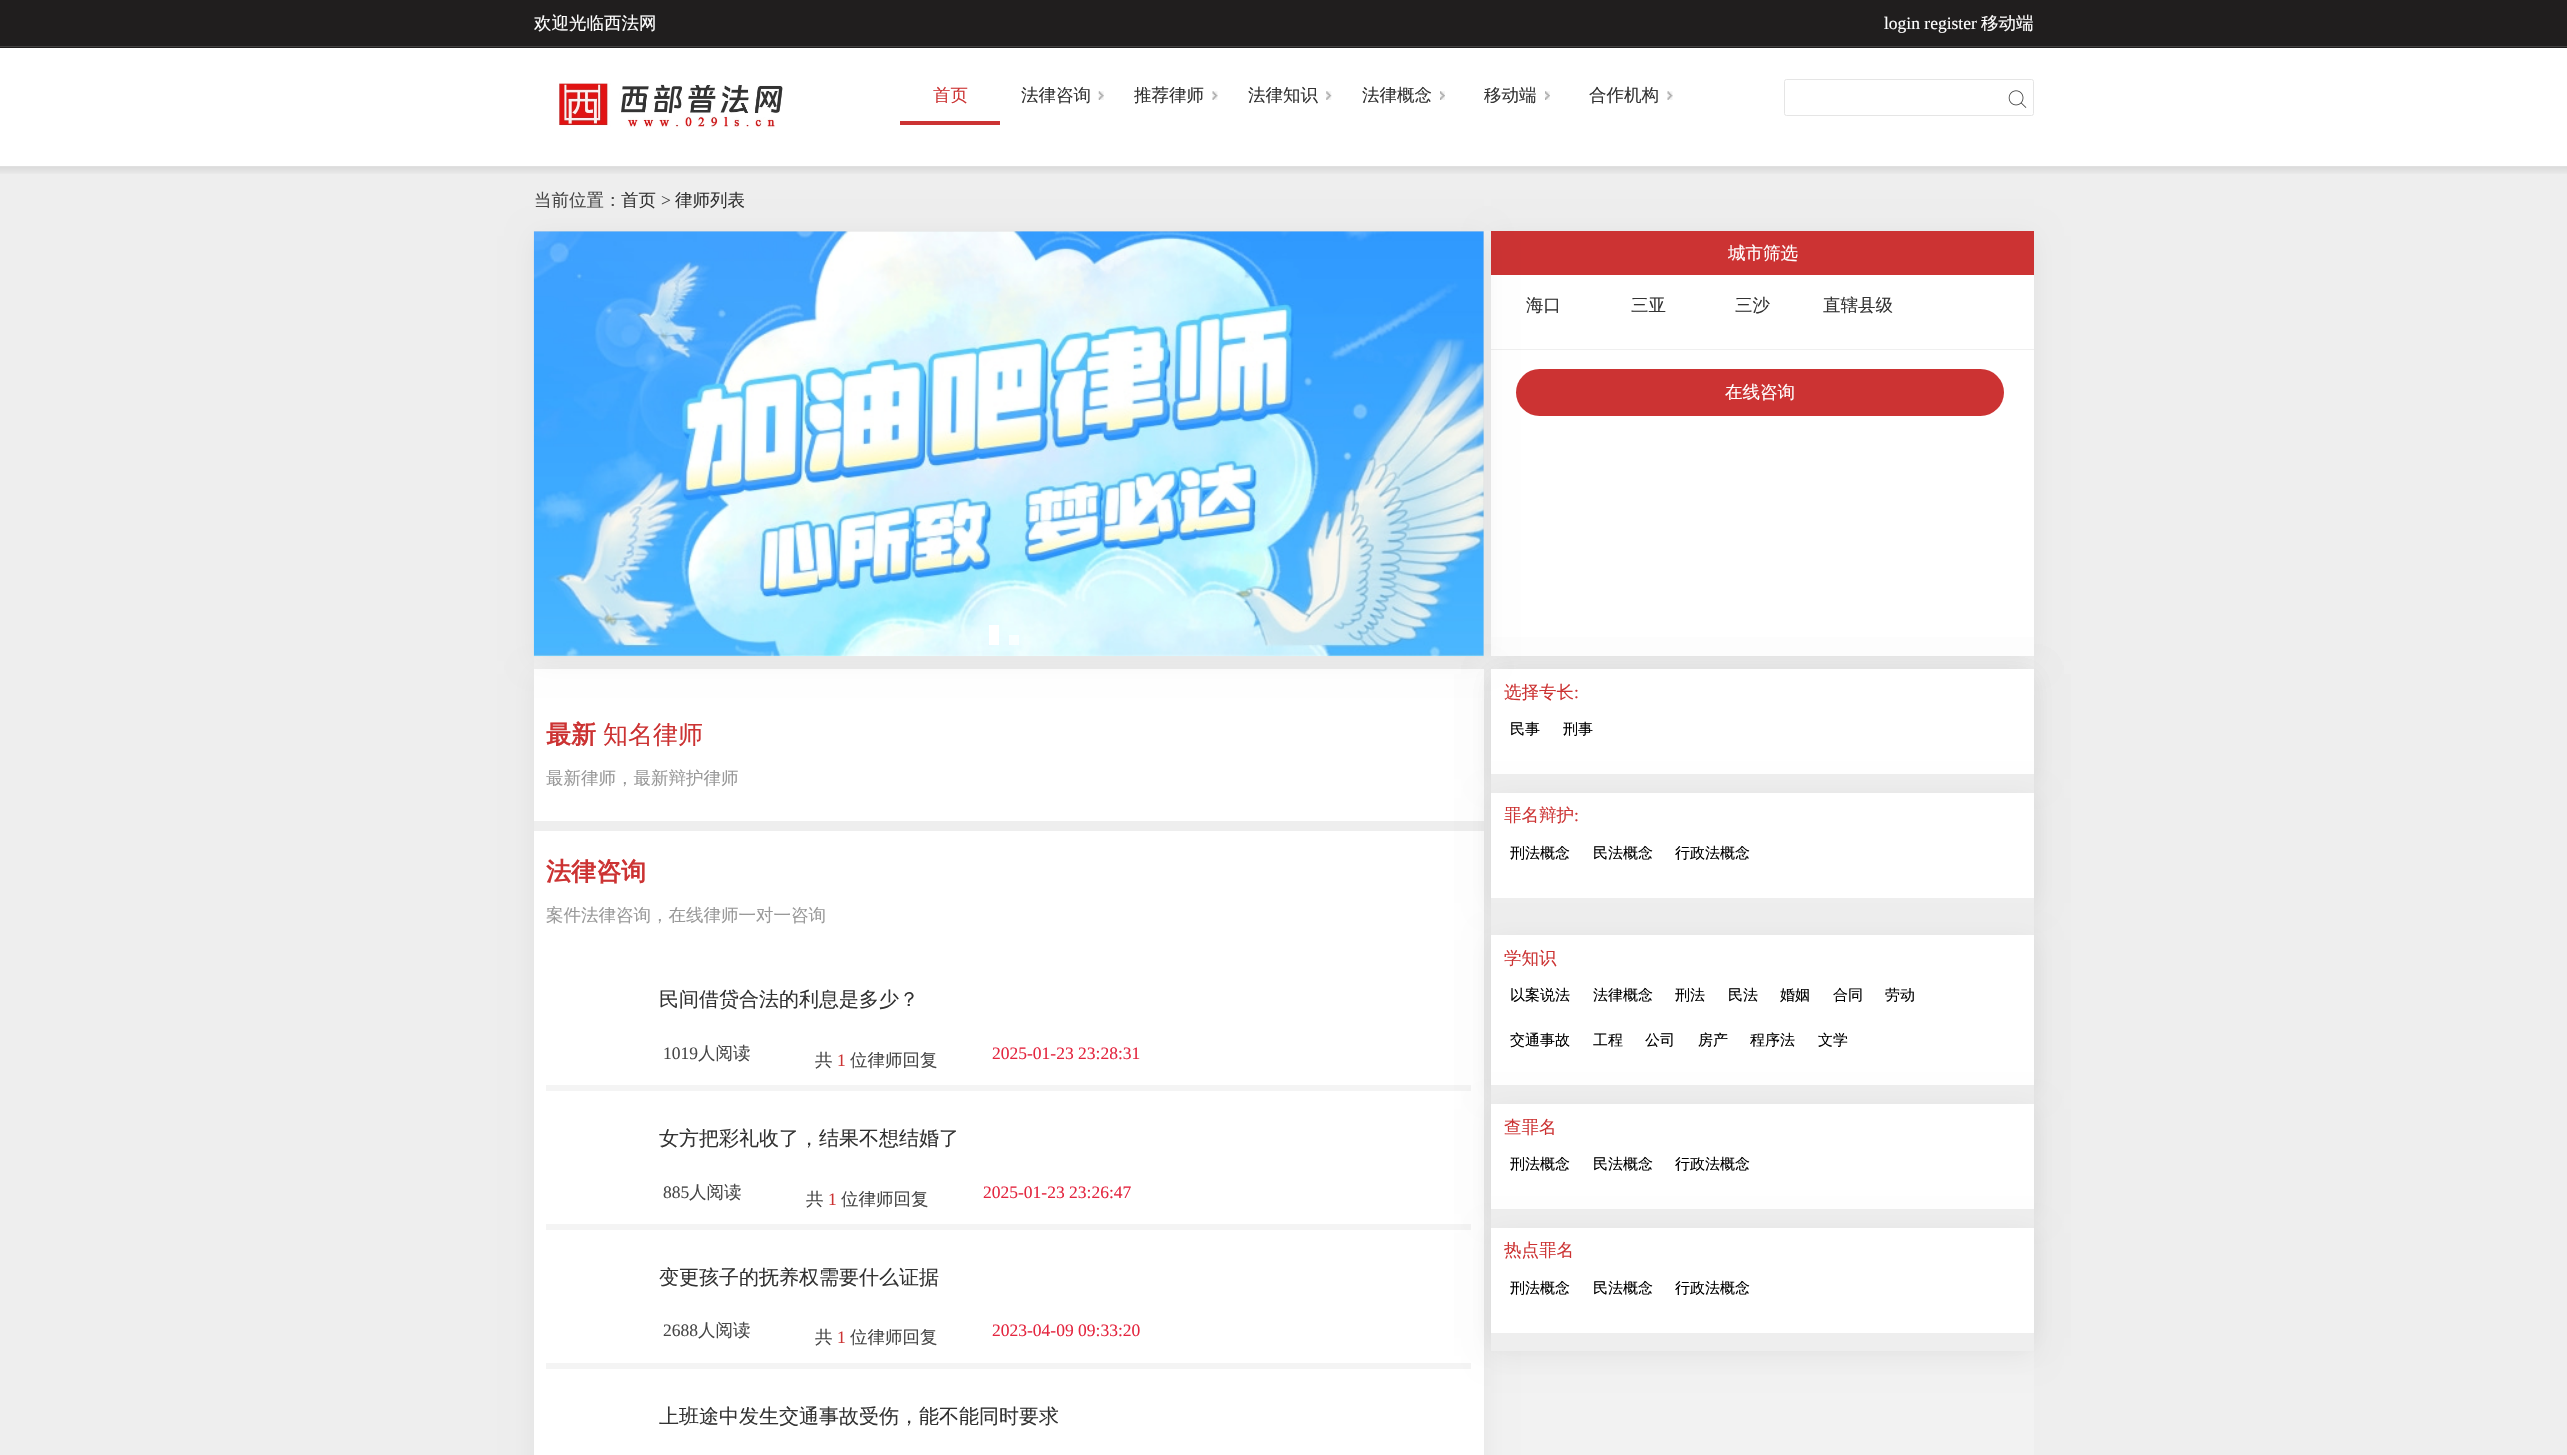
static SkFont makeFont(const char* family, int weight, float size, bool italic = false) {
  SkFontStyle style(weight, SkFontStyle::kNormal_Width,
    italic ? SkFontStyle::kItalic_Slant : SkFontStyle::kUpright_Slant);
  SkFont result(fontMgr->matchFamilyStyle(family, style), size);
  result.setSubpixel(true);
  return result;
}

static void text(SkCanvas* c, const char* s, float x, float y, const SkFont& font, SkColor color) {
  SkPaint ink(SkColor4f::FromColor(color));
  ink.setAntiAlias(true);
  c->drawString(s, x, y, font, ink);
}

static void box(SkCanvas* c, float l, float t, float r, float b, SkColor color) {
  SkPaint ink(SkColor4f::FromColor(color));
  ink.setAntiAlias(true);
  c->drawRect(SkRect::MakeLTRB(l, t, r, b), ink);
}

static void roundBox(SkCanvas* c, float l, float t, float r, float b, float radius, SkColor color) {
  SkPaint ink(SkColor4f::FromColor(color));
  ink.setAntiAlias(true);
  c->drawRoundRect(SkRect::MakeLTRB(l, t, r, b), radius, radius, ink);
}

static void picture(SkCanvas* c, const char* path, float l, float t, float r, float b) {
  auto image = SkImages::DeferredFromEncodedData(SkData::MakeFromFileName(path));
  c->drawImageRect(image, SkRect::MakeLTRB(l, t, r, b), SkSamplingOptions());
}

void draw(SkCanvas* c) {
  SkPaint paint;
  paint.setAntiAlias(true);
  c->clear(0xffeeeeee);
  box(c, 0, 0, 2567, 48, 0xff201e1e);
  box(c, 0, 46, 2567, 47, 0xff414040);
  SkFont face1 = makeFont("WenQuanYi Zen Hei", 500, 17.5f);
  text(c, "欢迎光临西法网", 534, 29, face1, 0xffffffff);
  SkFont face2 = makeFont("Liberation Serif", 400, 17.5f);
  text(c, "login register", 1884, 29, face2, 0xffffffff);
  text(c, "移动端", 1981, 29, face1, 0xffffffff);
  box(c, 0, 48, 2567, 166, 0xffffffff);
  picture(c, "img_01.png", 559, 83, 783, 128);
  box(c, 900, 121, 1000, 125, 0xffcc3333);
  text(c, "首页", 933, 101, face1, 0xffcc3333);
  text(c, "法律咨询", 1021, 101, face1, 0xff333333);
  picture(c, "img_02.png", 1098, 91, 1104, 100);
  text(c, "推荐律师", 1134, 101, face1, 0xff333333);
  picture(c, "img_03.png", 1212, 91, 1218, 100);
  text(c, "法律知识", 1248, 101, face1, 0xff333333);
  picture(c, "img_04.png", 1326, 91, 1332, 100);
  text(c, "法律概念", 1362, 101, face1, 0xff333333);
  picture(c, "img_05.png", 1440, 91, 1445, 100);
  text(c, "移动端", 1484, 101, face1, 0xff333333);
  picture(c, "img_06.png", 1545, 91, 1550, 100);
  text(c, "合作机构", 1589, 101, face1, 0xff333333);
  picture(c, "img_03.png", 1667, 91, 1673, 100);
  paint.setStyle(SkPaint::kStroke_Style);
  paint.setStrokeWidth(1);
  paint.setColor(0xffe5e5e5);
  c->drawRoundRect(SkRect::MakeLTRB(1784.5f, 79.5f, 2033.5f, 115.5f), 2, 2, paint);
  picture(c, "img_07.png", 2008, 90, 2027, 108);
  picture(c, "img_08.png", 0, 166, 2567, 174);
  text(c, "当前位置：", 534, 206, face1, 0xff474747);
  text(c, "首页", 621, 206, face1, 0xff333333);
  text(c, ">", 661, 206, face2, 0xff474747);
  text(c, "律师列表", 675, 206, face1, 0xff333333);
  box(c, 534, 231, 2034, 1455, 0xfff2f2f2);
  paint.setStyle(SkPaint::kFill_Style);
  paint.setColor(0x0d000000);
  paint.setMaskFilter(SkMaskFilter::MakeBlur(kNormal_SkBlurStyle, 12.5f));
  c->drawRect(SkRect::MakeLTRB(1491, 236, 2034, 661), paint);
  paint.setMaskFilter(nullptr);
  box(c, 1491, 275, 2034, 656, 0xffffffff);
  box(c, 1491, 231, 2034, 275, 0xffcc3333);
  box(c, 1491, 349, 2034, 350, 0xffefefef);
  roundBox(c, 1516, 369, 2004, 416, 23.5f, 0xffcc3333);
  paint.setMaskFilter(SkMaskFilter::MakeBlur(kNormal_SkBlurStyle, 12.5f));
  c->drawRect(SkRect::MakeLTRB(534, 674, 1484, 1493), paint);
  paint.setMaskFilter(nullptr);
  box(c, 534, 669, 1484, 1455, 0xffffffff);
  box(c, 534, 821, 1484, 831, 0xffeeeeee);
  box(c, 546, 1085, 1471, 1091, 0xfff4f4f4);
  box(c, 546, 1224, 1471, 1230, 0xfff4f4f4);
  box(c, 546, 1363, 1471, 1369, 0xfff4f4f4);
  paint.setMaskFilter(SkMaskFilter::MakeBlur(kNormal_SkBlurStyle, 12.5f));
  c->drawRect(SkRect::MakeLTRB(1491, 674, 2034, 1356), paint);
  paint.setMaskFilter(nullptr);
  paint.setMaskFilter(SkMaskFilter::MakeBlur(kNormal_SkBlurStyle, 12.5f));
  c->drawRect(SkRect::MakeLTRB(1491, 674, 2034, 779), paint);
  paint.setMaskFilter(nullptr);
  box(c, 1491, 669, 2034, 774, 0xffffffff);
  paint.setMaskFilter(SkMaskFilter::MakeBlur(kNormal_SkBlurStyle, 12.5f));
  c->drawRect(SkRect::MakeLTRB(534, 236, 1484, 661), paint);
  paint.setMaskFilter(nullptr);
  box(c, 534, 231, 1484, 656, 0xffdddddd);
  picture(c, "img_09.png", 533, 231, 1484, 657);
  box(c, 989, 625, 999, 645, 0xffffffff);
  box(c, 1009, 635, 1019, 645, 0xb3ffffff);
  text(c, "城市筛选", 1728, 259, face1, 0xffffffff);
  text(c, "海口", 1526, 311, face1, 0xff333333);
  text(c, "三亚", 1631, 311, face1, 0xff333333);
  text(c, "三沙", 1735, 311, face1, 0xff333333);
  text(c, "直辖县级", 1823, 311, face1, 0xff333333);
  text(c, "在线咨询", 1725, 398, face1, 0xffffffff);
  SkFont face3 = makeFont("WenQuanYi Zen Hei", 700, 25);
  text(c, "最新", 546, 743, face3, 0xffcc3333);
  SkFont face4 = makeFont("WenQuanYi Zen Hei", 500, 25);
  text(c, "知名律师", 603, 743, face4, 0xffcc3333);
  text(c, "最新律师，最新辩护律师", 546, 784, face1, 0xff999999);
  text(c, "法律咨询", 546, 880, face3, 0xffcc3333);
  text(c, "案件法律咨询，在线律师一对一咨询", 546, 921, face1, 0xff999999);
  SkFont face5 = makeFont("WenQuanYi Zen Hei", 500, 20);
  text(c, "民间借贷合法的利息是多少？", 659, 1006, face5, 0xff333333);
  text(c, "1019", 663, 1059, face2, 0xff474747);
  text(c, "人阅读", 698, 1059, face1, 0xff474747);
  text(c, "共", 815, 1066, face1, 0xff474747);
  text(c, "1", 837, 1066, face2, 0xffcc3333);
  text(c, "位律师回复", 850, 1066, face1, 0xff474747);
  text(c, "2025-01-23 23:28:31", 992, 1059, face2, 0xffe4263f);
  text(c, "女方把彩礼收了，结果不想结婚了", 659, 1145, face5, 0xff333333);
  text(c, "885", 663, 1198, face2, 0xff474747);
  text(c, "人阅读", 689, 1198, face1, 0xff474747);
  text(c, "共", 806, 1205, face1, 0xff474747);
  text(c, "1", 828, 1205, face2, 0xffcc3333);
  text(c, "位律师回复", 841, 1205, face1, 0xff474747);
  text(c, "2025-01-23 23:26:47", 983, 1198, face2, 0xffe4263f);
  text(c, "变更孩子的抚养权需要什么证据", 659, 1284, face5, 0xff333333);
  text(c, "2688", 663, 1336, face2, 0xff474747);
  text(c, "人阅读", 698, 1336, face1, 0xff474747);
  text(c, "共", 815, 1343, face1, 0xff474747);
  text(c, "1", 837, 1343, face2, 0xffcc3333);
  text(c, "位律师回复", 850, 1343, face1, 0xff474747);
  text(c, "2023-04-09 09:33:20", 992, 1336, face2, 0xffe4263f);
  text(c, "上班途中发生交通事故受伤，能不能同时要求", 659, 1423, face5, 0xff333333);
  text(c, "选择专长", 1504, 698, face1, 0xffcc3333);
  text(c, ":", 1574, 698, face2, 0xffcc3333);
  SkFont face6 = makeFont("WenQuanYi Zen Hei", 500, 15);
  text(c, "民事", 1510, 734, face6, 0xff000000);
  text(c, "刑事", 1563, 734, face6, 0xff000000);
  box(c, 1491, 774, 2034, 793, 0xffeeeeee);
  paint.setMaskFilter(SkMaskFilter::MakeBlur(kNormal_SkBlurStyle, 12.5f));
  c->drawRect(SkRect::MakeLTRB(1491, 798, 2034, 903), paint);
  paint.setMaskFilter(nullptr);
  box(c, 1491, 793, 2034, 898, 0xffffffff);
  text(c, "罪名辩护", 1504, 821, face1, 0xffcc3333);
  text(c, ":", 1574, 821, face2, 0xffcc3333);
  text(c, "刑法概念", 1510, 858, face6, 0xff000000);
  text(c, "民法概念", 1593, 858, face6, 0xff000000);
  text(c, "行政法概念", 1675, 858, face6, 0xff000000);
  box(c, 1491, 898, 2034, 935, 0xffeeeeee);
  paint.setMaskFilter(SkMaskFilter::MakeBlur(kNormal_SkBlurStyle, 12.5f));
  c->drawRect(SkRect::MakeLTRB(1491, 940, 2034, 1090), paint);
  paint.setMaskFilter(nullptr);
  box(c, 1491, 935, 2034, 1085, 0xffffffff);
  text(c, "学知识", 1504, 964, face1, 0xffcc3333);
  text(c, "以案说法", 1510, 1000, face6, 0xff000000);
  text(c, "法律概念", 1593, 1000, face6, 0xff000000);
  text(c, "刑法", 1675, 1000, face6, 0xff000000);
  text(c, "民法", 1728, 1000, face6, 0xff000000);
  text(c, "婚姻", 1780, 1000, face6, 0xff000000);
  text(c, "合同", 1833, 1000, face6, 0xff000000);
  text(c, "劳动", 1885, 1000, face6, 0xff000000);
  text(c, "交通事故", 1510, 1045, face6, 0xff000000);
  text(c, "工程", 1593, 1045, face6, 0xff000000);
  text(c, "公司", 1645, 1045, face6, 0xff000000);
  text(c, "房产", 1698, 1045, face6, 0xff000000);
  text(c, "程序法", 1750, 1045, face6, 0xff000000);
  text(c, "文学", 1818, 1045, face6, 0xff000000);
  box(c, 1491, 1085, 2034, 1104, 0xffeeeeee);
  paint.setMaskFilter(SkMaskFilter::MakeBlur(kNormal_SkBlurStyle, 12.5f));
  c->drawRect(SkRect::MakeLTRB(1491, 1109, 2034, 1214), paint);
  paint.setMaskFilter(nullptr);
  box(c, 1491, 1104, 2034, 1209, 0xffffffff);
  text(c, "查罪名", 1504, 1133, face1, 0xffcc3333);
  text(c, "刑法概念", 1510, 1169, face6, 0xff000000);
  text(c, "民法概念", 1593, 1169, face6, 0xff000000);
  text(c, "行政法概念", 1675, 1169, face6, 0xff000000);
  box(c, 1491, 1209, 2034, 1228, 0xffeeeeee);
  paint.setMaskFilter(SkMaskFilter::MakeBlur(kNormal_SkBlurStyle, 12.5f));
  c->drawRect(SkRect::MakeLTRB(1491, 1233, 2034, 1338), paint);
  paint.setMaskFilter(nullptr);
  box(c, 1491, 1228, 2034, 1333, 0xffffffff);
  text(c, "热点罪名", 1504, 1256, face1, 0xffcc3333);
  text(c, "刑法概念", 1510, 1293, face6, 0xff000000);
  text(c, "民法概念", 1593, 1293, face6, 0xff000000);
  text(c, "行政法概念", 1675, 1293, face6, 0xff000000);
  box(c, 1491, 1333, 2034, 1351, 0xffeeeeee);
}
